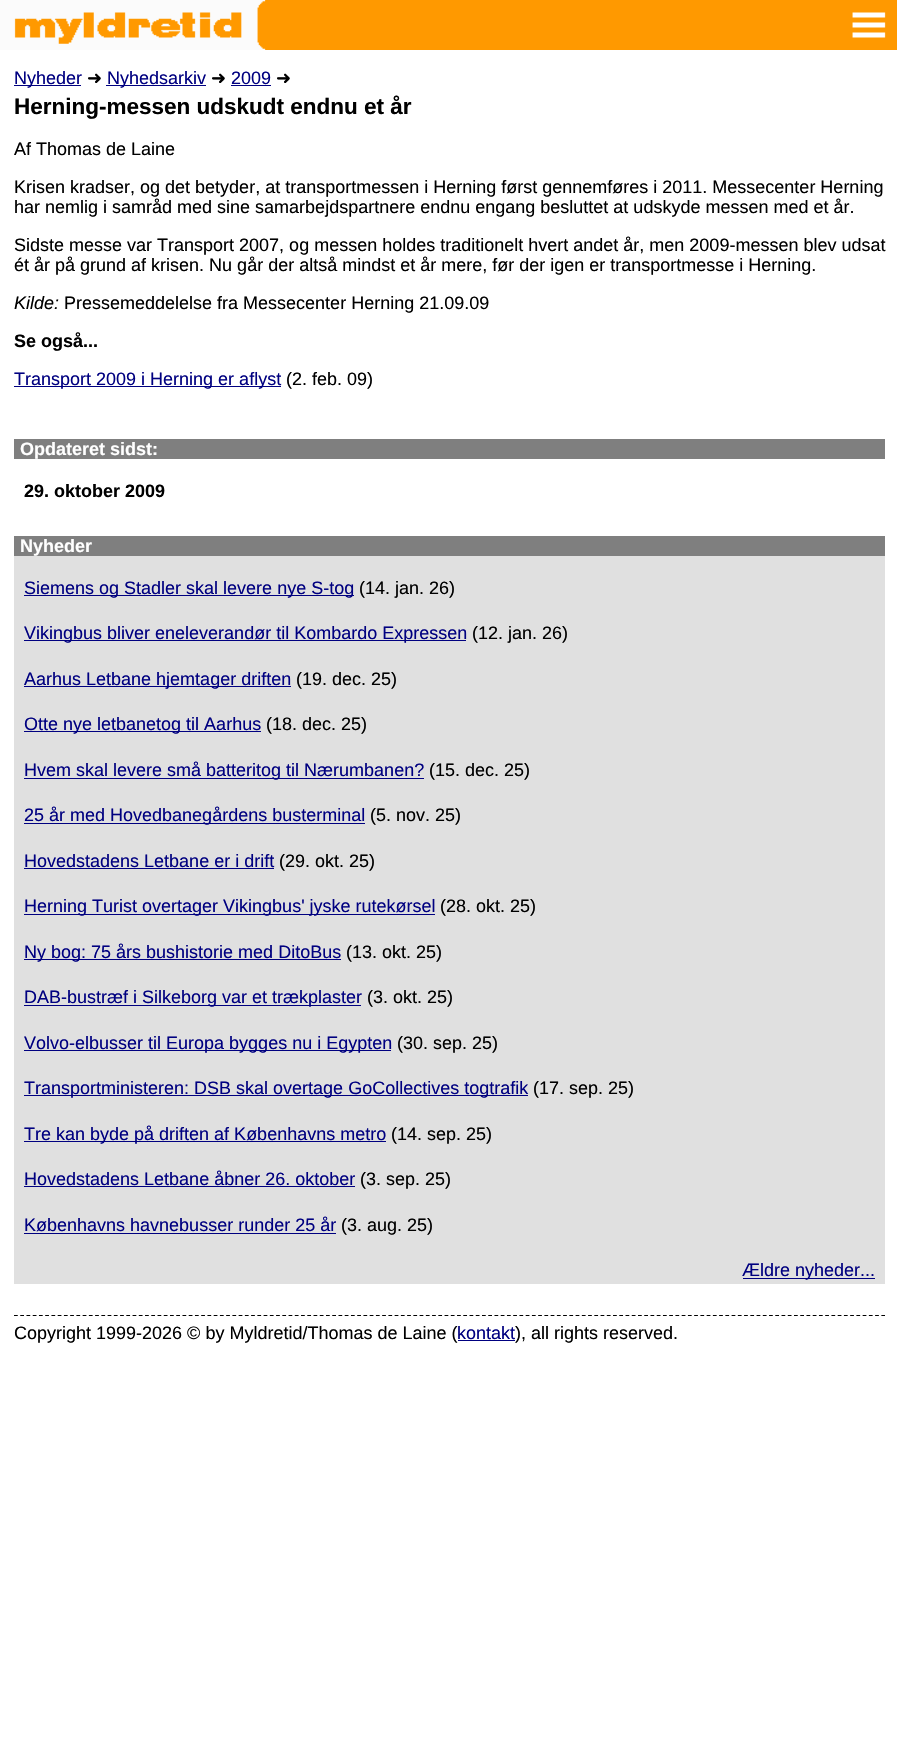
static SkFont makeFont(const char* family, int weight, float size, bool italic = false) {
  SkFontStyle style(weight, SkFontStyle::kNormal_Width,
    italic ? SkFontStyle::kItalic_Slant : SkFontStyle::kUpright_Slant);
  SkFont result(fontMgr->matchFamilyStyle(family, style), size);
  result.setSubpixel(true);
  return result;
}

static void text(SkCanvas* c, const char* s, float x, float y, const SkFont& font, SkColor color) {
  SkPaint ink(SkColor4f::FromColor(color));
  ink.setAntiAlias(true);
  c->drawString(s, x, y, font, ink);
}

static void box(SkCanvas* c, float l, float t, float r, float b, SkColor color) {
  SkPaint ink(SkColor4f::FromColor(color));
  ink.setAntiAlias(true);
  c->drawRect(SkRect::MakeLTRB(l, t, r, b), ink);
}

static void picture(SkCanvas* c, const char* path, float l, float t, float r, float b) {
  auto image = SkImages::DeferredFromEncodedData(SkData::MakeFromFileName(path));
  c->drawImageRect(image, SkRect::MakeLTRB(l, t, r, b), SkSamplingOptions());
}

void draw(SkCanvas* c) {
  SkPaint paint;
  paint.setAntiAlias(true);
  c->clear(0xffffffff);
  box(c, 14, 0, 897, 50, 0xffff9900);
  picture(c, "img_01.png", 0, 0, 266, 50);
  picture(c, "img_02.png", 852, 12, 886, 38);
  box(c, 14, 85, 81, 86, 0xff000080);
  SkFont face1 = makeFont("Liberation Sans", 400, 18);
  text(c, "Nyheder", 14, 84, face1, 0xff000080);
  SkFont face2 = makeFont("DejaVu Sans", 400, 18);
  text(c, "➜", 87, 84, face2, 0xff000000);
  box(c, 106, 85, 206, 86, 0xff000080);
  text(c, "Nyhedsarkiv", 107, 84, face1, 0xff000080);
  text(c, "➜", 211, 84, face2, 0xff000000);
  text(c, "2009", 231, 84, face1, 0xff000080);
  box(c, 231, 85, 271, 86, 0xff000080);
  text(c, "➜", 276, 84, face2, 0xff000000);
  SkFont face3 = makeFont("Liberation Sans", 700, 22.5f);
  text(c, "Herning-messen udskudt endnu et år", 14, 114, face3, 0xff000000);
  text(c, "Af Thomas de Laine", 14, 155, face1, 0xff000000);
  text(c, "Krisen kradser, og det betyder, at transportmessen i Herning først gennemføres i 2011. Messecenter Herning", 14, 193, face1, 0xff000000);
  text(c, "har nemlig i samråd med sine samarbejdspartnere endnu engang besluttet at udskyde messen med et år.", 14, 213, face1, 0xff000000);
  text(c, "Sidste messe var Transport 2007, og messen holdes traditionelt hvert andet år, men 2009-messen blev udsat", 14, 251, face1, 0xff000000);
  text(c, "ét år på grund af krisen. Nu går der altså mindst et år mere, før der igen er transportmesse i Herning.", 14, 271, face1, 0xff000000);
  SkFont face4 = makeFont("Liberation Sans", 400, 18, true);
  text(c, "Kilde:", 14, 309, face4, 0xff000000);
  text(c, "Pressemeddelelse fra Messecenter Herning 21.09.09", 64, 309, face1, 0xff000000);
  SkFont face5 = makeFont("Liberation Sans", 700, 18);
  text(c, "Se også...", 14, 347, face5, 0xff000000);
  box(c, 14, 386, 281, 387, 0xff000080);
  text(c, "Transport 2009 i Herning er aflyst", 14, 385, face1, 0xff000080);
  text(c, "(2. feb. 09)", 286, 385, face1, 0xff000000);
  box(c, 14, 439, 885, 459, 0xff7f7f7f);
  text(c, "Opdateret sidst:", 20, 455, face5, 0xffffffff);
  text(c, "29. oktober 2009", 24, 497, face5, 0xff000000);
  box(c, 14, 556, 885, 1284, 0xffe0e0e0);
  box(c, 14, 536, 885, 556, 0xff7f7f7f);
  text(c, "Nyheder", 20, 552, face5, 0xffffffff);
  box(c, 24, 595, 354, 596, 0xff000080);
  text(c, "Siemens og Stadler skal levere nye S-tog", 24, 594, face1, 0xff000080);
  text(c, "(14. jan. 26)", 359, 594, face1, 0xff000000);
  box(c, 24, 640, 466, 641, 0xff000080);
  text(c, "Vikingbus bliver eneleverandør til Kombardo Expressen", 24, 639, face1, 0xff000080);
  text(c, "(12. jan. 26)", 472, 639, face1, 0xff000000);
  box(c, 24, 686, 291, 687, 0xff000080);
  text(c, "Aarhus Letbane hjemtager driften", 24, 685, face1, 0xff000080);
  text(c, "(19. dec. 25)", 296, 685, face1, 0xff000000);
  box(c, 24, 731, 261, 732, 0xff000080);
  text(c, "Otte nye letbanetog til Aarhus", 24, 730, face1, 0xff000080);
  text(c, "(18. dec. 25)", 266, 730, face1, 0xff000000);
  box(c, 24, 778, 424, 779, 0xff000080);
  text(c, "Hvem skal levere små batteritog til Nærumbanen?", 24, 776, face1, 0xff000080);
  text(c, "(15. dec. 25)", 429, 776, face1, 0xff000000);
  box(c, 24, 823, 365, 824, 0xff000080);
  text(c, "25 år med Hovedbanegårdens busterminal", 24, 821, face1, 0xff000080);
  text(c, "(5. nov. 25)", 370, 821, face1, 0xff000000);
  text(c, "Hovedstadens Letbane er i drift", 24, 867, face1, 0xff000080);
  box(c, 24, 868, 274, 869, 0xff000080);
  text(c, "(29. okt. 25)", 279, 867, face1, 0xff000000);
  box(c, 24, 914, 435, 915, 0xff000080);
  text(c, "Herning Turist overtager Vikingbus' jyske rutekørsel", 24, 912, face1, 0xff000080);
  text(c, "(28. okt. 25)", 440, 912, face1, 0xff000000);
  box(c, 24, 959, 341, 960, 0xff000080);
  text(c, "Ny bog: 75 års bushistorie med DitoBus", 24, 958, face1, 0xff000080);
  text(c, "(13. okt. 25)", 346, 958, face1, 0xff000000);
  box(c, 24, 1005, 361, 1006, 0xff000080);
  text(c, "DAB-bustræf i Silkeborg var et trækplaster", 24, 1003, face1, 0xff000080);
  text(c, "(3. okt. 25)", 367, 1003, face1, 0xff000000);
  box(c, 24, 1050, 391, 1051, 0xff000080);
  text(c, "Volvo-elbusser til Europa bygges nu i Egypten", 24, 1049, face1, 0xff000080);
  text(c, "(30. sep. 25)", 397, 1049, face1, 0xff000000);
  box(c, 24, 1095, 528, 1096, 0xff000080);
  text(c, "Transportministeren: DSB skal overtage GoCollectives togtrafik", 24, 1094, face1, 0xff000080);
  text(c, "(17. sep. 25)", 533, 1094, face1, 0xff000000);
  box(c, 24, 1141, 386, 1142, 0xff000080);
  text(c, "Tre kan byde på driften af Københavns metro", 24, 1140, face1, 0xff000080);
  text(c, "(14. sep. 25)", 391, 1140, face1, 0xff000000);
  text(c, "Hovedstadens Letbane åbner 26. oktober", 24, 1185, face1, 0xff000080);
  box(c, 24, 1186, 355, 1187, 0xff000080);
  text(c, "(3. sep. 25)", 360, 1185, face1, 0xff000000);
  text(c, "Københavns havnebusser runder 25 år", 24, 1231, face1, 0xff000080);
  box(c, 24, 1233, 336, 1234, 0xff000080);
  text(c, "(3. aug. 25)", 341, 1231, face1, 0xff000000);
  box(c, 743, 1278, 875, 1279, 0xff000080);
  text(c, "Ældre nyheder...", 742, 1276, face1, 0xff000080);
  paint.setStyle(SkPaint::kStroke_Style);
  paint.setStrokeWidth(1.2f);
  paint.setColor(0xff000000);
  paint.setPathEffect(SkDashPathEffect::Make({{3.75f, 2.49f}}, 0));
  c->drawPath(SkPathBuilder().moveTo(14, 1315.5f).lineTo(885, 1315.5f).detach(), paint);
  paint.setPathEffect(nullptr);
  text(c, "Copyright 1999-2026 © by Myldretid/Thomas de Laine (", 14, 1339, face1, 0xff000000);
  text(c, "kontakt", 457, 1339, face1, 0xff000080);
  box(c, 458, 1340, 515, 1341, 0xff000080);
  text(c, "), all rights reserved.", 515, 1339, face1, 0xff000000);
}
